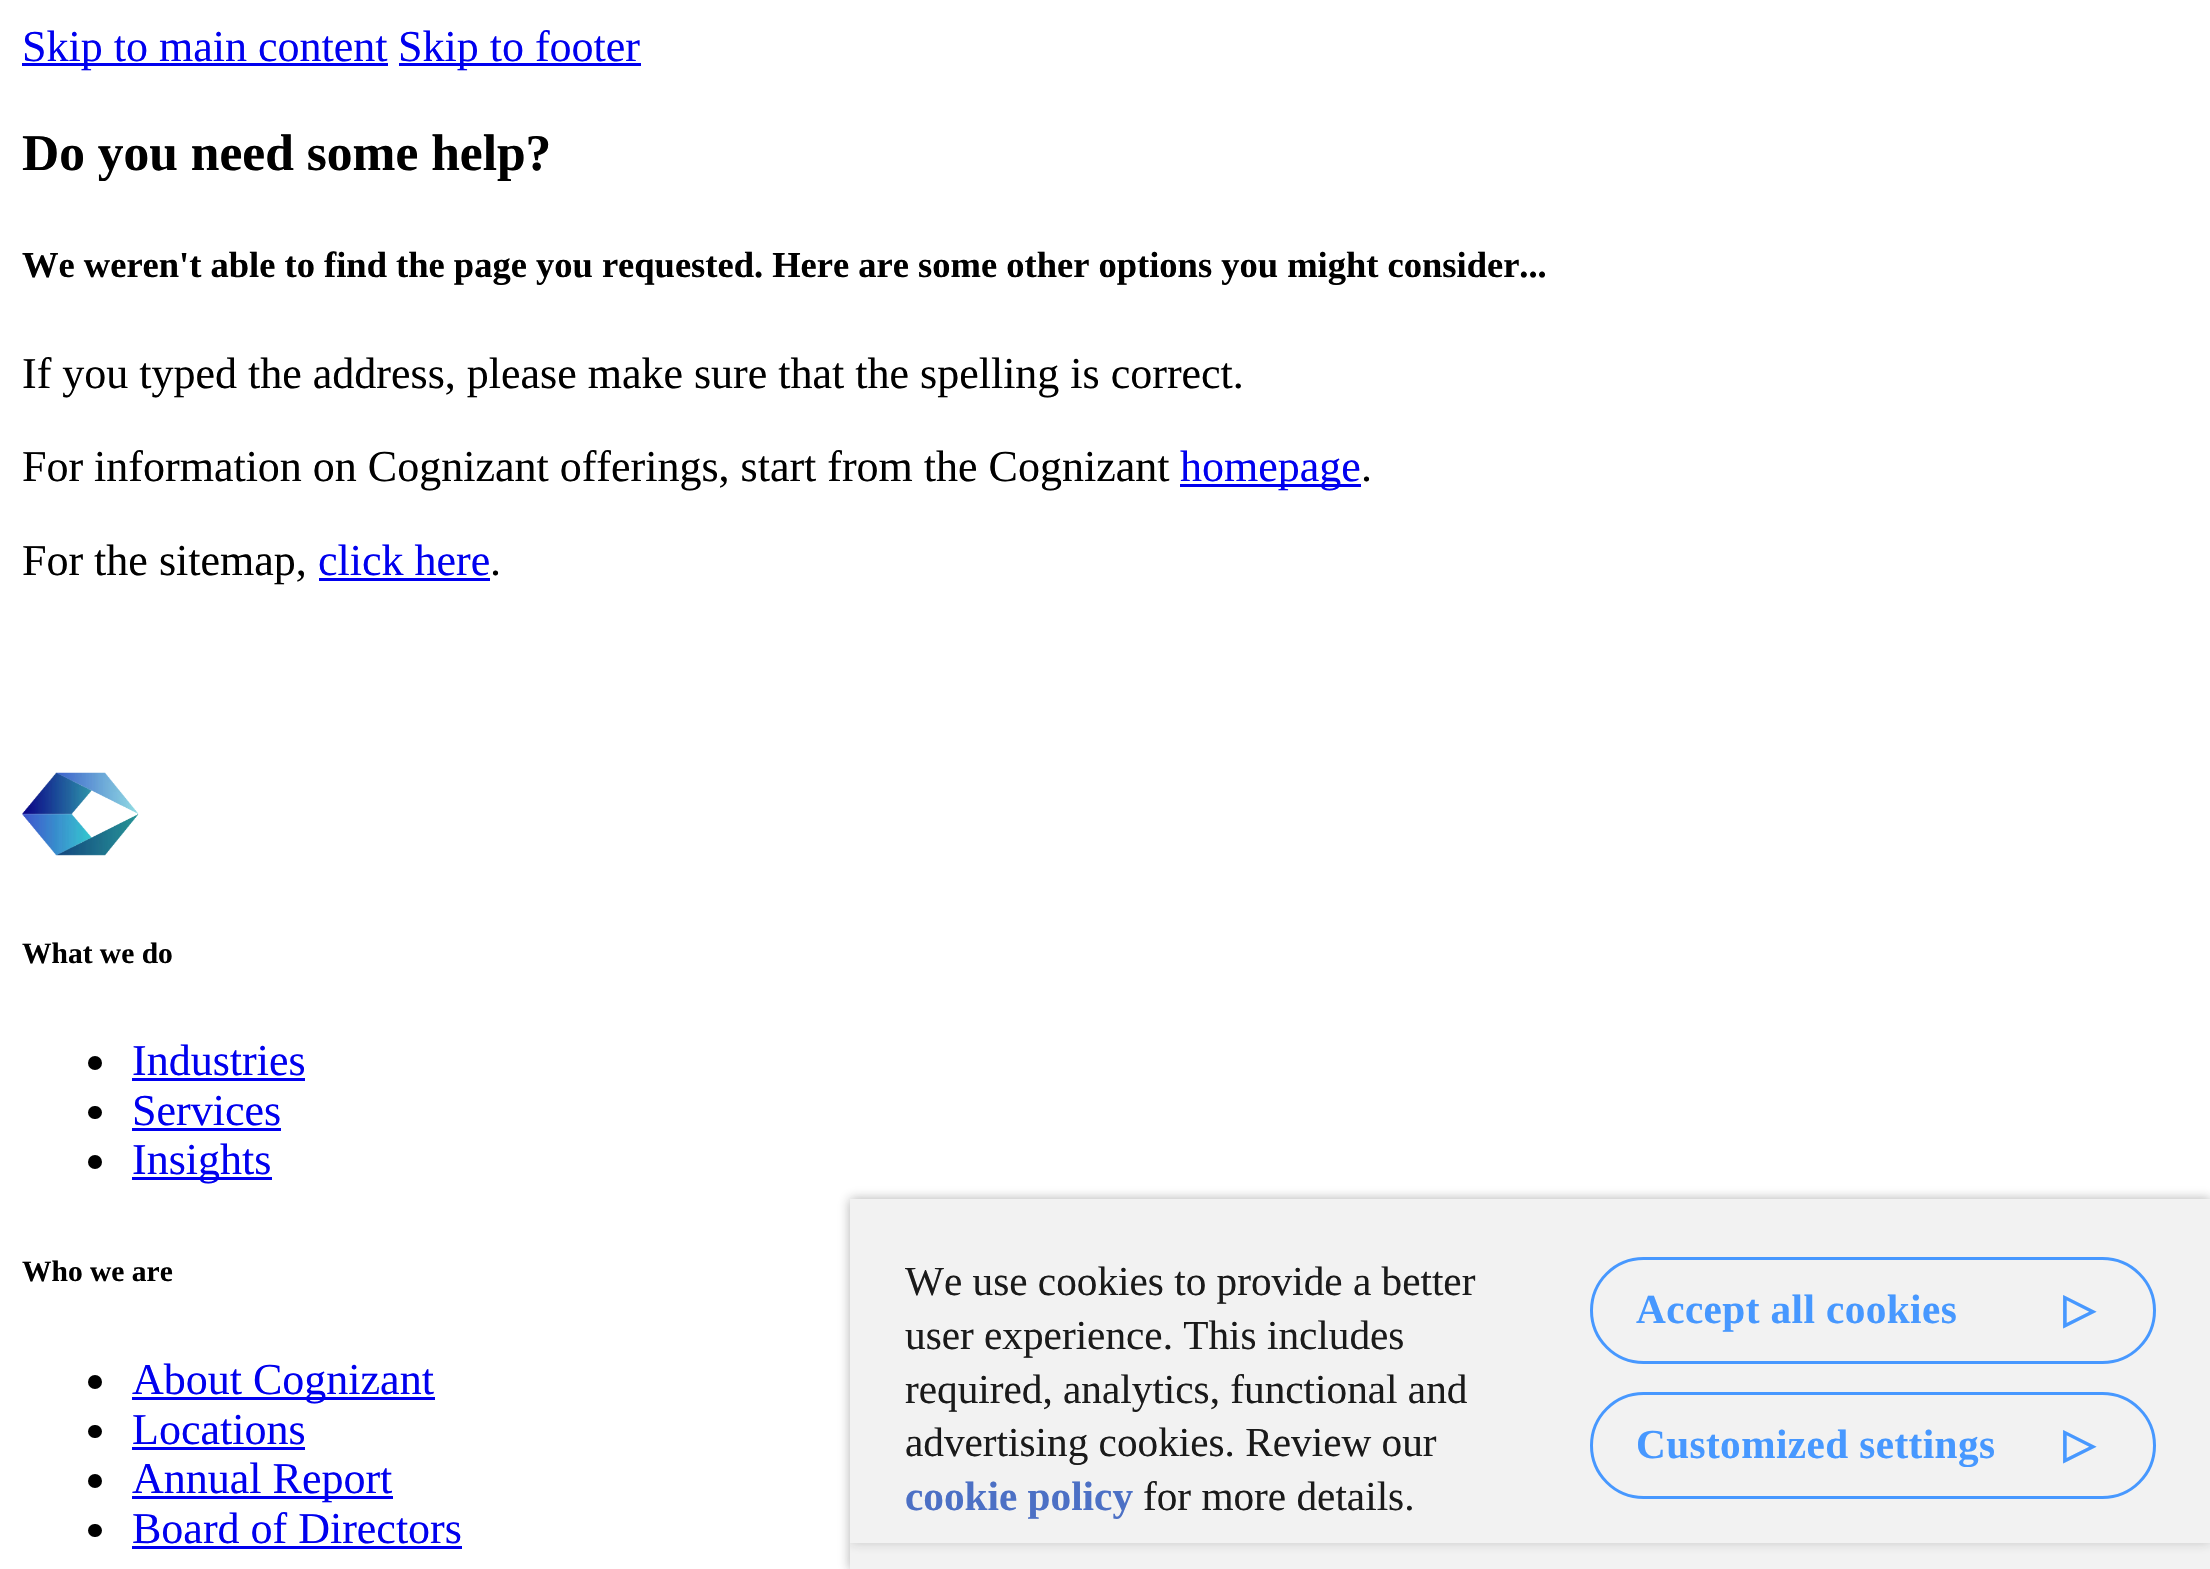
static SkFont makeFont(const char* family, int weight, float size, bool italic = false) {
  SkFontStyle style(weight, SkFontStyle::kNormal_Width,
    italic ? SkFontStyle::kItalic_Slant : SkFontStyle::kUpright_Slant);
  SkFont result(fontMgr->matchFamilyStyle(family, style), size);
  result.setSubpixel(true);
  return result;
}

static void text(SkCanvas* c, const char* s, float x, float y, const SkFont& font, SkColor color) {
  SkPaint ink(SkColor4f::FromColor(color));
  ink.setAntiAlias(true);
  c->drawString(s, x, y, font, ink);
}

static void spacedText(SkCanvas* c, const char* s, float x, float y, const SkFont& font, const SkPaint& ink, float letter, float word) {
  std::vector<SkGlyphID> glyphs(font.countText(s, strlen(s), SkTextEncoding::kUTF8));
  std::vector<float> xs(glyphs.size());
  font.textToGlyphs(s, strlen(s), SkTextEncoding::kUTF8, glyphs);
  font.getXPos(glyphs, xs, x);
  float extra = 0;
  for (size_t i = 0; i < glyphs.size(); i++) {
    xs[i] += extra;
    extra += letter + word * (glyphs[i] == font.unicharToGlyph(' '));
  }
  c->drawTextBlob(SkTextBlob::MakeFromPosHGlyphs(glyphs, xs, y, font), 0, 0, ink);
}

static void box(SkCanvas* c, float l, float t, float r, float b, SkColor color) {
  SkPaint ink(SkColor4f::FromColor(color));
  ink.setAntiAlias(true);
  c->drawRect(SkRect::MakeLTRB(l, t, r, b), ink);
}

static void roundBox(SkCanvas* c, float l, float t, float r, float b, float radius, SkColor color) {
  SkPaint ink(SkColor4f::FromColor(color));
  ink.setAntiAlias(true);
  c->drawRoundRect(SkRect::MakeLTRB(l, t, r, b), radius, radius, ink);
}

static void picture(SkCanvas* c, const char* path, float l, float t, float r, float b) {
  auto image = SkImages::DeferredFromEncodedData(SkData::MakeFromFileName(path));
  c->drawImageRect(image, SkRect::MakeLTRB(l, t, r, b), SkSamplingOptions());
}

void draw(SkCanvas* c) {
  SkPaint paint;
  paint.setAntiAlias(true);
  c->clear(0xffffffff);
  box(c, 22, 63, 388, 66, 0xff0000ee);
  SkFont face1 = makeFont("Liberation Serif", 400, 44);
  text(c, "Skip to main content", 22, 61, face1, 0xff0000ee);
  box(c, 399, 63, 641, 66, 0xff0000ee);
  text(c, "Skip to footer", 398, 61, face1, 0xff0000ee);
  SkFont face2 = makeFont("Liberation Serif", 700, 51.5f);
  text(c, "Do you need some help?", 22, 170, face2, 0xff000000);
  SkFont face3 = makeFont("Liberation Serif", 700, 36.5f);
  text(c, "We weren't able to find the page you requested. Here are some other options you might consider...", 22, 277, face3, 0xff000000);
  text(c, "If you typed the address, please make sure that the spelling is correct.", 22, 388, face1, 0xff000000);
  text(c, "For information on Cognizant offerings, start from the Cognizant", 22, 481, face1, 0xff000000);
  box(c, 1180, 484, 1361, 487, 0xff0000ee);
  text(c, "homepage", 1180, 481, face1, 0xff0000ee);
  text(c, ".", 1361, 481, face1, 0xff000000);
  text(c, "For the sitemap,", 22, 575, face1, 0xff000000);
  text(c, "click here", 318, 575, face1, 0xff0000ee);
  box(c, 319, 578, 490, 581, 0xff0000ee);
  text(c, ".", 490, 575, face1, 0xff000000);
  picture(c, "img_01.png", 22, 772, 139, 856);
  SkFont face4 = makeFont("Liberation Serif", 700, 29.5f);
  text(c, "What we do", 22, 963, face4, 0xff000000);
  paint.setColor(0xff000000);
  c->drawCircle(95, 1063, 7, paint);
  text(c, "Industries", 132, 1075, face1, 0xff0000ee);
  box(c, 132, 1078, 305, 1081, 0xff0000ee);
  roundBox(c, 88, 1106, 102, 1119, 6.5f, 0xff000000);
  text(c, "Services", 132, 1125, face1, 0xff0000ee);
  box(c, 132, 1128, 281, 1131, 0xff0000ee);
  c->drawCircle(95, 1162, 7, paint);
  box(c, 132, 1177, 272, 1180, 0xff0000ee);
  text(c, "Insights", 132, 1174, face1, 0xff0000ee);
  text(c, "Who we are", 22, 1281, face4, 0xff000000);
  c->drawCircle(95, 1382, 7, paint);
  box(c, 132, 1397, 435, 1400, 0xff0000ee);
  text(c, "About Cognizant", 132, 1394, face1, 0xff0000ee);
  roundBox(c, 88, 1425, 102, 1438, 6.5f, 0xff000000);
  text(c, "Locations", 132, 1444, face1, 0xff0000ee);
  box(c, 132, 1447, 305, 1450, 0xff0000ee);
  c->drawCircle(95, 1481, 7, paint);
  box(c, 132, 1496, 393, 1499, 0xff0000ee);
  text(c, "Annual Report", 132, 1493, face1, 0xff0000ee);
  roundBox(c, 88, 1524, 102, 1537, 6.5f, 0xff000000);
  text(c, "Board of Directors", 132, 1543, face1, 0xff0000ee);
  box(c, 132, 1546, 462, 1549, 0xff0000ee);
  paint.setColor(0x591a1a1a);
  paint.setMaskFilter(SkMaskFilter::MakeBlur(kNormal_SkBlurStyle, 5.5f));
  c->drawRect(SkRect::MakeLTRB(850, 1199, 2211, 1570), paint);
  paint.setMaskFilter(nullptr);
  box(c, 850, 1543, 2210, 1569, 0xfff2f2f2);
  c->save();
  c->clipRect(SkRect::MakeLTRB(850, 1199, 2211, 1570));
  paint.setColor(0x331a1a1a);
  paint.setMaskFilter(SkMaskFilter::MakeBlur(kNormal_SkBlurStyle, 5.5f));
  c->drawRect(SkRect::MakeLTRB(850, 1199, 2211, 1543), paint);
  paint.setMaskFilter(nullptr);
  c->restore();
  box(c, 850, 1199, 2210, 1543, 0xfff2f2f2);
  SkFont face5 = makeFont("Liberation Serif", 400, 41.25f);
  text(c, "We use cookies to provide a better", 905, 1295, face5, 0xff1a1a1a);
  text(c, "user experience. This includes", 905, 1349, face5, 0xff1a1a1a);
  text(c, "required, analytics, functional and", 905, 1403, face5, 0xff1a1a1a);
  text(c, "advertising cookies. Review our", 905, 1456, face5, 0xff1a1a1a);
  SkFont face6 = makeFont("Liberation Serif", 700, 41.25f);
  text(c, "cookie policy", 905, 1510, face6, 0xff4c70c5);
  text(c, "for more details.", 1143, 1510, face5, 0xff1a1a1a);
  paint.setStyle(SkPaint::kStroke_Style);
  paint.setStrokeWidth(3);
  paint.setColor(0xff4798ff);
  c->drawRoundRect(SkRect::MakeLTRB(1591.5f, 1258.5f, 2154.5f, 1362.5f), 52, 52, paint);
  paint.setStyle(SkPaint::kFill_Style);
  spacedText(c, "Accept all cookies", 1636, 1323, face6, paint, 0.4f, 0);
  SkFont face7 = makeFont("DejaVu Sans", 700, 41.25f);
  spacedText(c, "▷", 2063, 1323, face7, paint, 0.4f, 0);
  paint.setStyle(SkPaint::kStroke_Style);
  c->drawRoundRect(SkRect::MakeLTRB(1591.5f, 1393.5f, 2154.5f, 1497.5f), 52, 52, paint);
  paint.setStyle(SkPaint::kFill_Style);
  spacedText(c, "Customized settings", 1636, 1458, face6, paint, 0.4f, 0);
  spacedText(c, "▷", 2063, 1458, face7, paint, 0.4f, 0);
}
